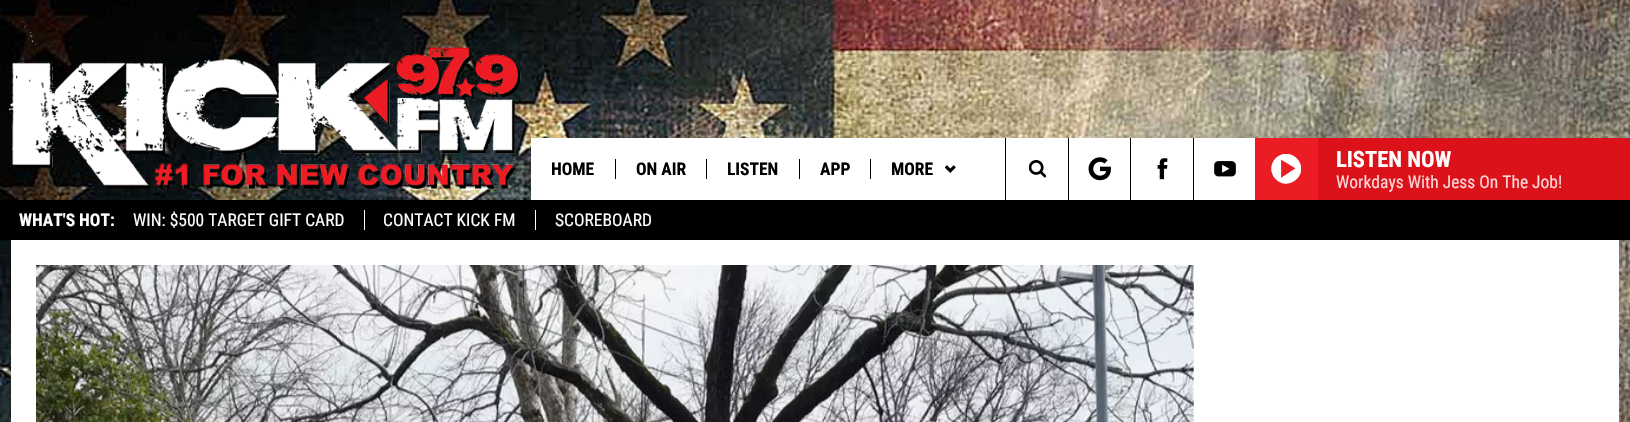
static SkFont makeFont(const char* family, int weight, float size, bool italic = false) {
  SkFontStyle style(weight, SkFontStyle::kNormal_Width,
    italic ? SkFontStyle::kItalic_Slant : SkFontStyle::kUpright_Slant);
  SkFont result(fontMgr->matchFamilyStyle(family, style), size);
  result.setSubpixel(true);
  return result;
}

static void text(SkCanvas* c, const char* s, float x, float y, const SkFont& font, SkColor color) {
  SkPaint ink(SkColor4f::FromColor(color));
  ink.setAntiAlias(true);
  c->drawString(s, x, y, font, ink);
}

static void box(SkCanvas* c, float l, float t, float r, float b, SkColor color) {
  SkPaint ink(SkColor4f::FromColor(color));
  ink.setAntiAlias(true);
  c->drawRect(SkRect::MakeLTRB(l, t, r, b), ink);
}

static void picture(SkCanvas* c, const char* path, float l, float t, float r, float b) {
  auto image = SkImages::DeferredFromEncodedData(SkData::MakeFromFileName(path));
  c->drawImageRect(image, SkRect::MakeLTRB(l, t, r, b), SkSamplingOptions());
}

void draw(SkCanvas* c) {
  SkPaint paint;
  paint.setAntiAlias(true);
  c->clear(0xffffffff);
  picture(c, "img_01.png", 0, 240, 1630, 422);
  picture(c, "img_02.png", 0, 0, 1630, 200);
  picture(c, "img_03.png", 8, 20, 521, 190);
  box(c, 531, 138, 1255, 200, 0xffffffff);
  SkFont face1 = makeFont("Roboto Condensed", 700, 17.5f);
  text(c, "HOME", 551, 175, face1, 0xff000000);
  box(c, 615, 159, 616, 179, 0xff000000);
  text(c, "ON AIR", 636, 175, face1, 0xff000000);
  box(c, 706, 159, 707, 179, 0xff000000);
  text(c, "LISTEN", 727, 175, face1, 0xff000000);
  box(c, 799, 159, 800, 179, 0xff000000);
  text(c, "APP", 820, 175, face1, 0xff000000);
  box(c, 870, 159, 871, 179, 0xff000000);
  text(c, "MORE", 891, 175, face1, 0xff000000);
  picture(c, "img_04.png", 944, 165, 956, 173);
  box(c, 1005, 138, 1006, 200, 0xff000000);
  picture(c, "img_05.png", 1029, 160, 1046, 178);
  box(c, 1068, 138, 1069, 200, 0xff000000);
  picture(c, "img_06.png", 1088, 157, 1111, 181);
  box(c, 1130, 138, 1131, 200, 0xff000000);
  picture(c, "img_07.png", 1157, 158, 1168, 180);
  box(c, 1193, 138, 1194, 200, 0xff000000);
  picture(c, "img_08.png", 1214, 161, 1236, 177);
  box(c, 1255, 138, 1318, 200, 0xffec1c24);
  picture(c, "img_09.png", 1271, 154, 1301, 184);
  box(c, 1318, 138, 1630, 200, 0xffdc121a);
  SkFont face2 = makeFont("Roboto Condensed", 700, 22.5f);
  text(c, "LISTEN NOW", 1336, 167, face2, 0xffffffff);
  SkFont face3 = makeFont("Roboto Condensed", 400, 17.5f);
  text(c, "Workdays With Jess On The Job!", 1336, 188, face3, 0xfffcd8da);
  box(c, 0, 200, 1630, 240, 0xff000000);
  text(c, "WHAT'S HOT:", 19, 226, face1, 0xffffffff);
  text(c, "WIN: $500 TARGET GIFT CARD", 133, 226, face3, 0xffffffff);
  text(c, "CONTACT KICK FM", 383, 226, face3, 0xffffffff);
  box(c, 364, 210, 365, 230, 0xffffffff);
  text(c, "SCOREBOARD", 555, 226, face3, 0xffffffff);
  box(c, 535, 210, 536, 230, 0xffffffff);
  box(c, 11, 240, 1619, 422, 0xffffffff);
  picture(c, "img_10.png", 36, 265, 1194, 422);
}
